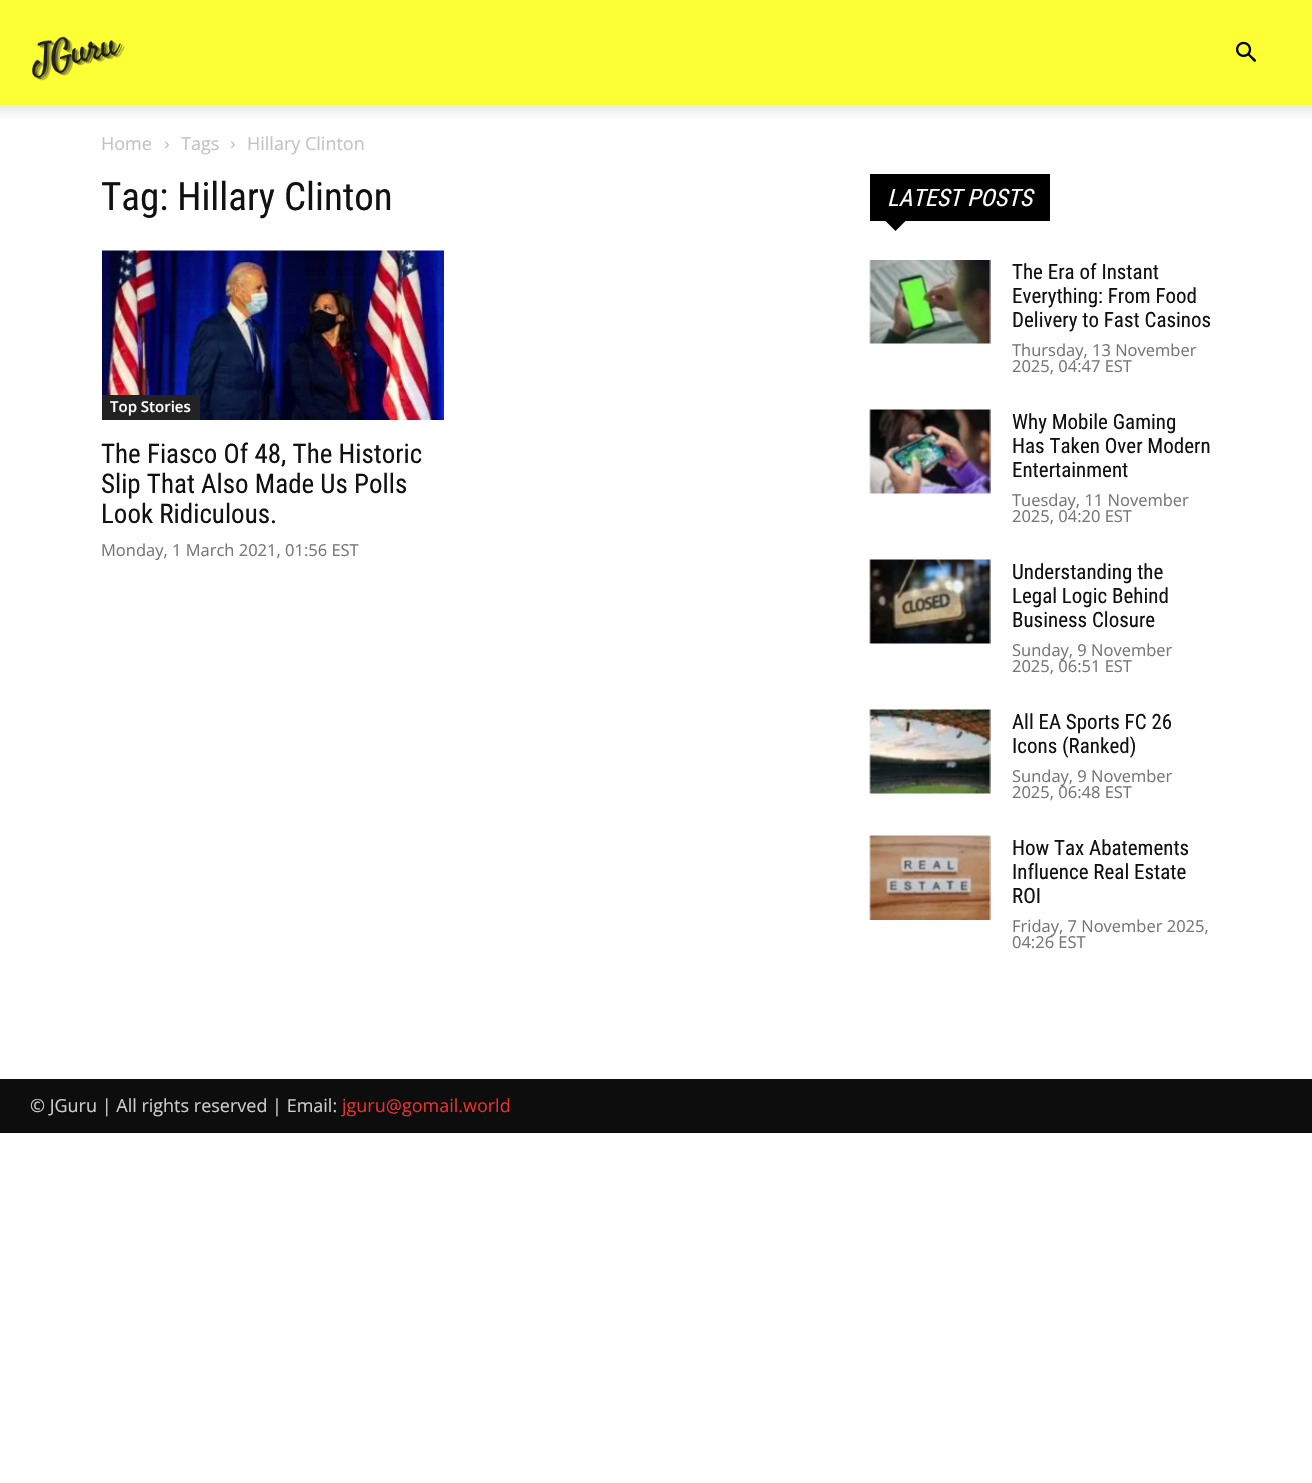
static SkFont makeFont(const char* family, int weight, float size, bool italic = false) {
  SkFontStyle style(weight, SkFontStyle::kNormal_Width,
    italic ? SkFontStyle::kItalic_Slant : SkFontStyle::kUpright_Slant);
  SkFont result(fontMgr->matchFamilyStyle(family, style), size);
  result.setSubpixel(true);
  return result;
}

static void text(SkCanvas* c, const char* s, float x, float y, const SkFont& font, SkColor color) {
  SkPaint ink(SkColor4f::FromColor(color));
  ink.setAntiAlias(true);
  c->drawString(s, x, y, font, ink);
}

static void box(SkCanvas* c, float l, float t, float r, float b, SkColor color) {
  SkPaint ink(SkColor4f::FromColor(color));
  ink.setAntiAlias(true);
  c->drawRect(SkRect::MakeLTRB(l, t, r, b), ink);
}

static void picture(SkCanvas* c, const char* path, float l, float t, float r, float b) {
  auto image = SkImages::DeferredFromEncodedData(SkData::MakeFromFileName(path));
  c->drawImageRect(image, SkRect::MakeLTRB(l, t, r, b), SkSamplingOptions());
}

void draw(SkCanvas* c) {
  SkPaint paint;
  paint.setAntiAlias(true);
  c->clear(0xffffffff);
  box(c, 0, 0, 1312, 105, 0xfffbff33);
  picture(c, "img_01.png", 32, 36, 125, 81);
  picture(c, "img_02.png", 1236, 41, 1256, 62);
  picture(c, "img_03.png", 0, 105, 1312, 118);
  SkFont face1 = makeFont("Open Sans", 400, 18);
  text(c, "Home", 101, 150, face1, 0xffc3c3c3);
  picture(c, "img_04.png", 165, 141, 169, 149);
  text(c, "Tags", 181, 150, face1, 0xffc3c3c3);
  picture(c, "img_04.png", 231, 141, 235, 149);
  text(c, "Hillary Clinton", 247, 150, face1, 0xffc3c3c3);
  SkFont face2 = makeFont("Roboto Condensed", 400, 39);
  text(c, "Tag: Hillary Clinton", 101, 210, face2, 0xff111111);
  picture(c, "img_05.png", 102, 250, 444, 420);
  box(c, 102, 395, 200, 420, 0xff222222);
  SkFont face3 = makeFont("Open Sans", 600, 15);
  text(c, "Top Stories", 110, 412, face3, 0xffffffff);
  SkFont face4 = makeFont("Roboto Condensed", 400, 27);
  text(c, "The Fiasco Of 48, The Historic", 101, 463, face4, 0xff111111);
  text(c, "Slip That Also Made Us Polls", 101, 493, face4, 0xff111111);
  text(c, "Look Ridiculous.", 101, 523, face4, 0xff111111);
  SkFont face5 = makeFont("Open Sans", 400, 16.5f);
  text(c, "Monday, 1 March 2021, 01:56 EST", 101, 556, face5, 0xff767676);
  box(c, 870, 174, 1050, 221, 0xff000000);
  SkFont face6 = makeFont("Roboto Condensed", 400, 24, true);
  text(c, "LATEST POSTS", 887, 206, face6, 0xffffffff);
  paint.setColor(0xff000000);
  c->drawPath(SkPathBuilder().moveTo(885, 220.5f).lineTo(906, 220.5f).lineTo(895.5f, 231).close().detach(), paint);
  picture(c, "img_06.png", 869, 260, 991, 344);
  SkFont face7 = makeFont("Roboto Condensed", 400, 21);
  text(c, "The Era of Instant", 1012, 279, face7, 0xff111111);
  text(c, "Everything: From Food", 1012, 303, face7, 0xff111111);
  text(c, "Delivery to Fast Casinos", 1012, 327, face7, 0xff111111);
  text(c, "Thursday, 13 November", 1012, 356, face5, 0xff767676);
  text(c, "2025, 04:47 EST", 1012, 372, face5, 0xff767676);
  picture(c, "img_07.png", 869, 409, 991, 494);
  text(c, "Why Mobile Gaming", 1012, 429, face7, 0xff111111);
  text(c, "Has Taken Over Modern", 1012, 453, face7, 0xff111111);
  text(c, "Entertainment", 1012, 477, face7, 0xff111111);
  text(c, "Tuesday, 11 November", 1012, 506, face5, 0xff767676);
  text(c, "2025, 04:20 EST", 1012, 522, face5, 0xff767676);
  picture(c, "img_08.png", 869, 559, 991, 644);
  text(c, "Understanding the", 1012, 579, face7, 0xff111111);
  text(c, "Legal Logic Behind", 1012, 603, face7, 0xff111111);
  text(c, "Business Closure", 1012, 627, face7, 0xff111111);
  text(c, "Sunday, 9 November", 1012, 656, face5, 0xff767676);
  text(c, "2025, 06:51 EST", 1012, 672, face5, 0xff767676);
  picture(c, "img_09.png", 869, 709, 991, 794);
  text(c, "All EA Sports FC 26", 1012, 729, face7, 0xff111111);
  text(c, "Icons (Ranked)", 1012, 753, face7, 0xff111111);
  text(c, "Sunday, 9 November", 1012, 782, face5, 0xff767676);
  text(c, "2025, 06:48 EST", 1012, 798, face5, 0xff767676);
  picture(c, "img_10.png", 869, 835, 991, 920);
  text(c, "How Tax Abatements", 1012, 855, face7, 0xff111111);
  text(c, "Influence Real Estate", 1012, 879, face7, 0xff111111);
  text(c, "ROI", 1012, 903, face7, 0xff111111);
  text(c, "Friday, 7 November 2025,", 1012, 932, face5, 0xff767676);
  text(c, "04:26 EST", 1012, 948, face5, 0xff767676);
  box(c, 0, 1079, 1312, 1133, 0xff0d0d0d);
  text(c, "© JGuru | All rights reserved | Email:", 30, 1112, face1, 0xffcccccc);
  text(c, "jguru@gomail.world", 342, 1112, face1, 0xffea2e2e);
}
